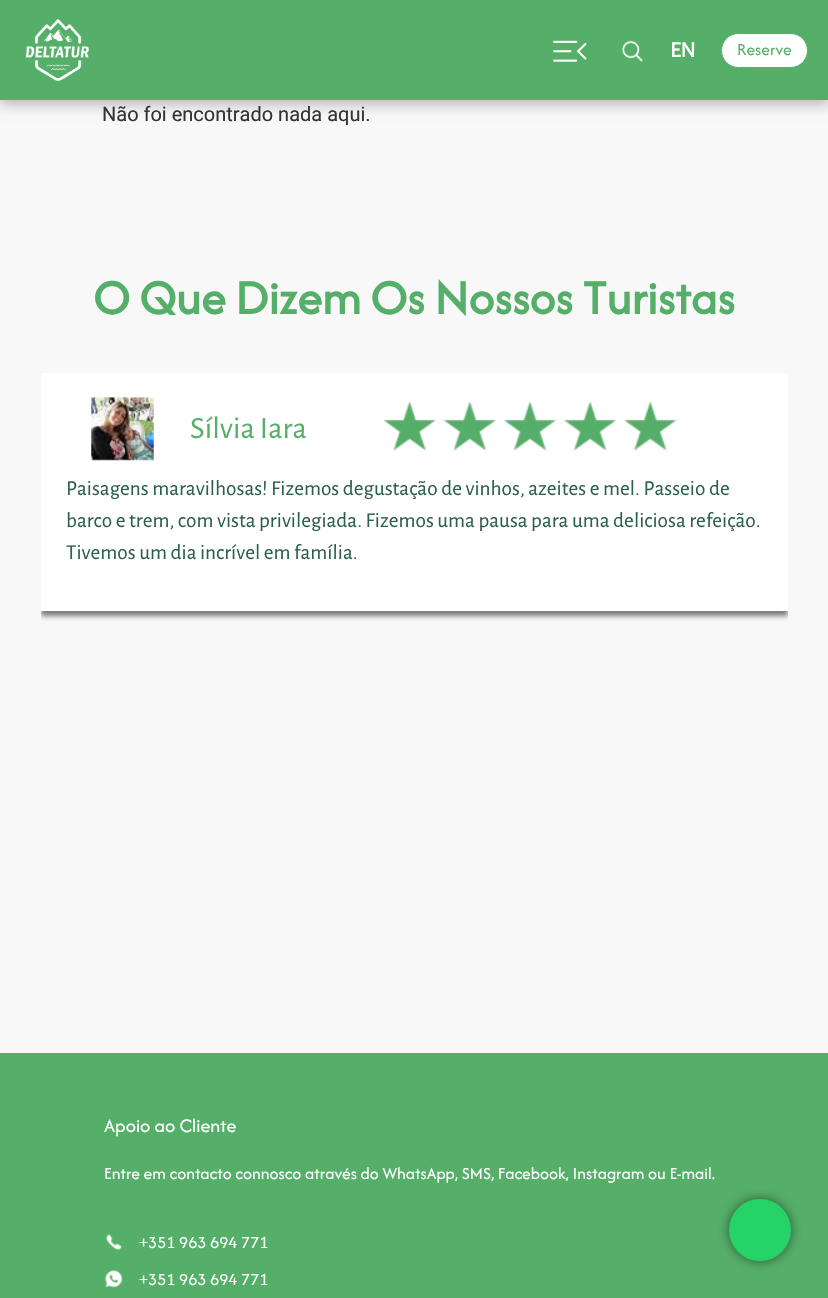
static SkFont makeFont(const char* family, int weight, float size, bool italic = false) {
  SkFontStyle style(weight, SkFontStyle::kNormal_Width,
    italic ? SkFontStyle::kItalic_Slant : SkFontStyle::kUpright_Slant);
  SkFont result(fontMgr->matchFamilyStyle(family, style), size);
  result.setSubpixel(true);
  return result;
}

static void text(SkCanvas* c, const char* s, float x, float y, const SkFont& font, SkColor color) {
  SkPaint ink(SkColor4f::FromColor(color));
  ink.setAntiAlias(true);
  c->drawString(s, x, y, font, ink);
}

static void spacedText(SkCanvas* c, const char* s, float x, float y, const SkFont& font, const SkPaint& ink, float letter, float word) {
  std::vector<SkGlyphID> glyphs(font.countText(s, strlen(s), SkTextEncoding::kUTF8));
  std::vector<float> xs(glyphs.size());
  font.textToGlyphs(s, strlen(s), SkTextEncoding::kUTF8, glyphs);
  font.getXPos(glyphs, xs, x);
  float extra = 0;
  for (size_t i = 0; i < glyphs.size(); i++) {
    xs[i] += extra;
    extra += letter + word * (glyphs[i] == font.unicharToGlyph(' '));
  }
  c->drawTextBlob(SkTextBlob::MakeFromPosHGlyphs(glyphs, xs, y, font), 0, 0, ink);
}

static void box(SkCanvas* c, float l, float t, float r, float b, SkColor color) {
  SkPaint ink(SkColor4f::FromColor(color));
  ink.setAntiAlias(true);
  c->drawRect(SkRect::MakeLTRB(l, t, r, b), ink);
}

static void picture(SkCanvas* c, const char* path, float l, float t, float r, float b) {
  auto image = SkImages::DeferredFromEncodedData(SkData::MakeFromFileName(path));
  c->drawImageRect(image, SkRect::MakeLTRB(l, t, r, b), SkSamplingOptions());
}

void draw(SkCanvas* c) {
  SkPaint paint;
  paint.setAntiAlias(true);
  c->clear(0xfff8f8f8);
  paint.setColor(0x40000000);
  paint.setMaskFilter(SkMaskFilter::MakeBlur(kNormal_SkBlurStyle, 6));
  c->drawRect(SkRect::MakeLTRB(0, 5, 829, 105), paint);
  paint.setMaskFilter(nullptr);
  box(c, 0, 0, 828, 100, 0xff55af69);
  picture(c, "img_01.png", 25, 19, 90, 81);
  picture(c, "img_02.png", 553, 40, 587, 62);
  picture(c, "img_03.png", 622, 40, 643, 62);
  SkFont face1 = makeFont("Alegreya Sans", 700, 22);
  text(c, "EN", 670, 57, face1, 0xffffffff);
  paint.setColor(0xffffffff);
  c->drawRoundRect(SkRect::MakeLTRB(721.5f, 33.5f, 807.5f, 67.5f), 17, 17, paint);
  paint.setStyle(SkPaint::kStroke_Style);
  paint.setStrokeWidth(1);
  paint.setColor(0xff55af69);
  c->drawRoundRect(SkRect::MakeLTRB(721.5f, 33.5f, 807.5f, 67.5f), 17, 17, paint);
  SkFont face2 = makeFont("Afacad", 400, 17.5f);
  text(c, "Reserve", 737, 55, face2, 0xff55af69);
  box(c, 0, 1053, 828, 1298, 0xff55af69);
  paint.setStyle(SkPaint::kFill_Style);
  paint.setColor(0x80000000);
  paint.setMaskFilter(SkMaskFilter::MakeBlur(kNormal_SkBlurStyle, 6));
  c->drawRoundRect(SkRect::MakeLTRB(729, 1199, 791, 1261), 31, 31, paint);
  paint.setMaskFilter(nullptr);
  paint.setColor(0xff25d366);
  c->drawCircle(760, 1230, 31, paint);
  SkFont face3 = makeFont("Roboto", 400, 20);
  text(c, "Não foi encontrado nada aqui.", 102, 121, face3, 0xff333333);
  SkFont face4 = makeFont("Afacad", 700, 50);
  paint.setColor(0xff55af69);
  spacedText(c, "O Que Dizem Os Nossos Turistas", 93, 314, face4, paint, 0, -1);
  c->save();
  c->clipRect(SkRect::MakeLTRB(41, 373, 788, 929));
  paint.setColor(0x80000000);
  paint.setMaskFilter(SkMaskFilter::MakeBlur(kNormal_SkBlurStyle, 2.5f));
  c->drawRect(SkRect::MakeLTRB(41, 378, 788, 616), paint);
  paint.setMaskFilter(nullptr);
  c->restore();
  box(c, 41, 373, 788, 611, 0xffffffff);
  picture(c, "img_04.png", 91, 397, 154, 461);
  SkFont face5 = makeFont("Alegreya Sans", 400, 31);
  text(c, "Sílvia Iara", 190, 438, face5, 0xff55af69);
  picture(c, "img_05.png", 383, 401, 677, 451);
  SkFont face6 = makeFont("Alegreya Sans", 400, 21.25f);
  text(c, "Paisagens maravilhosas! Fizemos degustação de vinhos, azeites e mel. Passeio de", 66, 495, face6, 0xff2a6148);
  text(c, "barco e trem, com vista privilegiada. Fizemos uma pausa para uma deliciosa refeição.", 66, 527, face6, 0xff2a6148);
  text(c, "Tivemos um dia incrível em família.", 66, 559, face6, 0xff2a6148);
  SkFont face7 = makeFont("Afacad", 400, 20);
  text(c, "Apoio ao Cliente", 104, 1132, face7, 0xffffffff);
  text(c, "Entre em contacto connosco através do WhatsApp, SMS, Facebook, Instagram ou E-mail.", 104, 1179, face2, 0xffffffff);
  picture(c, "img_06.png", 106, 1234, 122, 1250);
  text(c, "+351 963 694 771", 139, 1248, face2, 0xffffffff);
  picture(c, "img_07.png", 104, 1269, 123, 1288);
  text(c, "+351 963 694 771", 139, 1285, face2, 0xffffffff);
}
